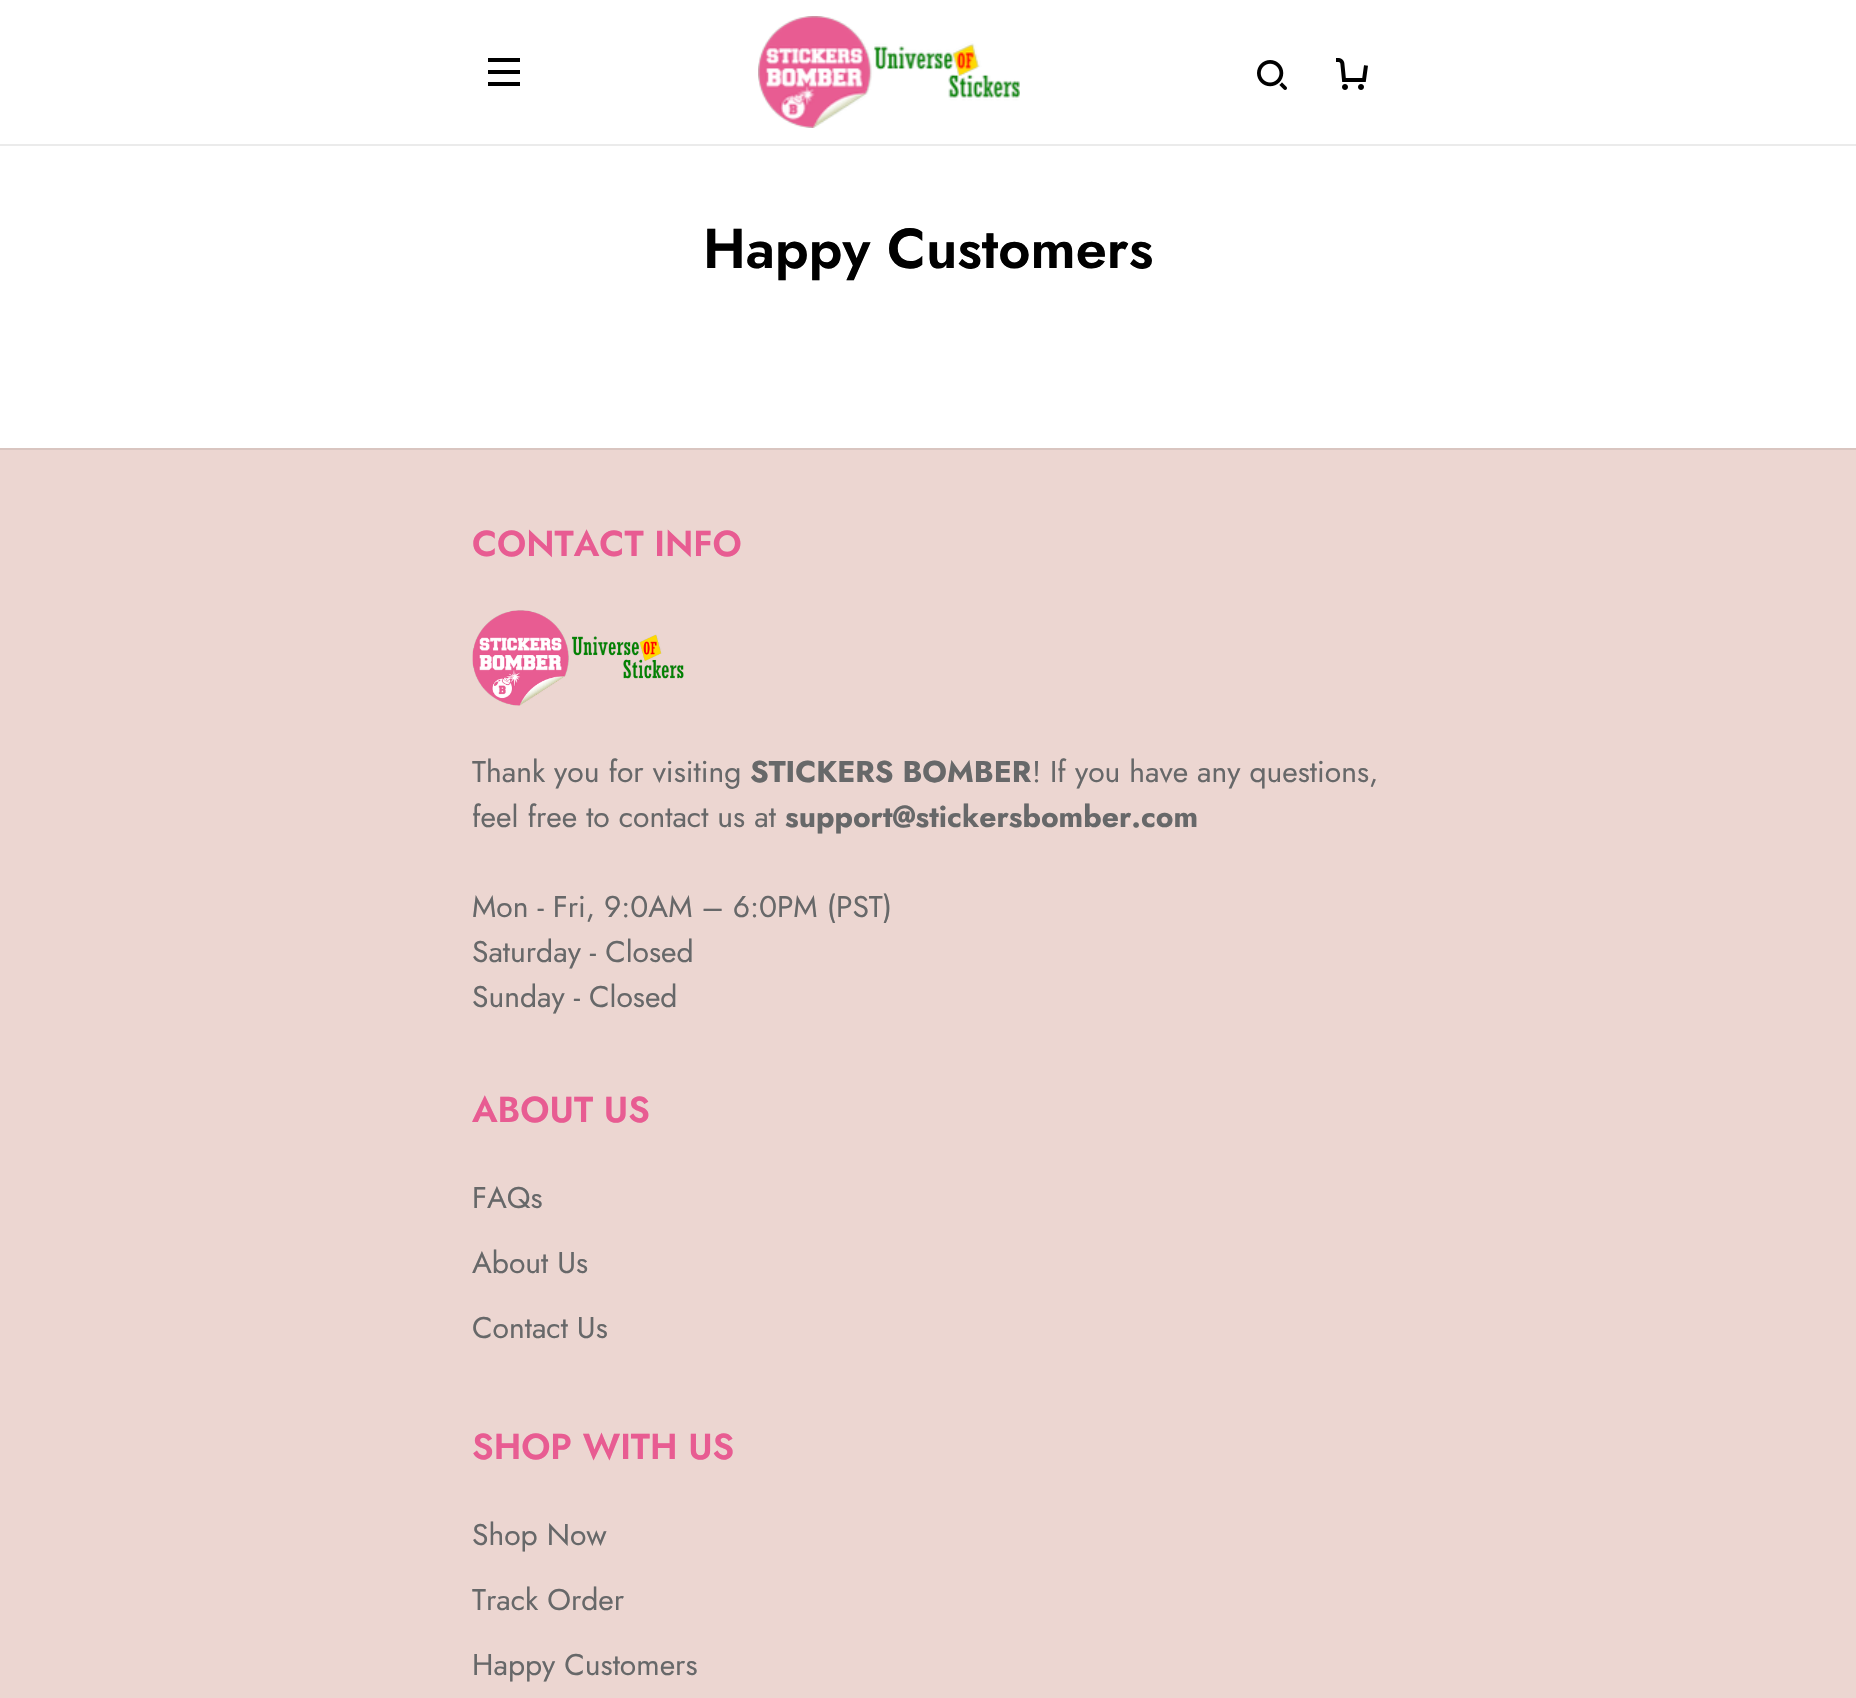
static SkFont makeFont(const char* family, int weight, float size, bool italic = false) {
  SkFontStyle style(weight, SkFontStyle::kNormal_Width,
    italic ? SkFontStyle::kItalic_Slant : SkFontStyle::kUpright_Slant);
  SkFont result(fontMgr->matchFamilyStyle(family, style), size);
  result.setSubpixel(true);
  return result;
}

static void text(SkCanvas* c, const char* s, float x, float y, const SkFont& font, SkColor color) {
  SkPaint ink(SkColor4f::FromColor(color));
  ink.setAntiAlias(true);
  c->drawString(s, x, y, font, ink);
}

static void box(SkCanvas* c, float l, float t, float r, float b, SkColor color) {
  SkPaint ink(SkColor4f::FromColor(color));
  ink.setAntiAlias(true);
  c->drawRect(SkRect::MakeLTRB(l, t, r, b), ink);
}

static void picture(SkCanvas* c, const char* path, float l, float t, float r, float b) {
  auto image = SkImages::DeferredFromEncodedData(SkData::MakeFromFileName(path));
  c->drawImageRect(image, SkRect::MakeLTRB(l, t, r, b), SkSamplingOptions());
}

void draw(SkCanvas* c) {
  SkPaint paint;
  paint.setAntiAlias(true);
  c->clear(0xffffffff);
  box(c, 0, 144, 1856, 146, 0xffebebeb);
  box(c, 488, 58, 520, 62, 0xff000000);
  box(c, 488, 70, 520, 74, 0xff000000);
  box(c, 488, 82, 520, 86, 0xff000000);
  picture(c, "img_01.png", 758, 16, 1020, 128);
  picture(c, "img_02.png", 1257, 60, 1287, 90);
  picture(c, "img_03.png", 1336, 58, 1368, 90);
  SkFont face1 = makeFont("Jost", 600, 56);
  text(c, "Happy Customers", 703, 268, face1, 0xff000000);
  box(c, 0, 450, 1856, 1698, 0xffecd6d1);
  box(c, 0, 448, 1856, 450, 0xffd9c5c0);
  SkFont face2 = makeFont("Jost", 600, 36);
  text(c, "CONTACT INFO", 472, 556, face2, 0xffe85c92);
  picture(c, "img_04.png", 472, 610, 684, 706);
  SkFont face3 = makeFont("Jost", 400, 30);
  text(c, "Thank you for visiting", 472, 782, face3, 0xff676869);
  SkFont face4 = makeFont("Jost", 700, 30);
  text(c, "STICKERS BOMBER", 750, 782, face4, 0xff676869);
  text(c, "! If you have any questions,", 1032, 782, face3, 0xff676869);
  text(c, "feel free to contact us at", 472, 827, face3, 0xff676869);
  text(c, "support@stickersbomber.com", 785, 827, face4, 0xff676869);
  text(c, "Mon - Fri, 9:0AM – 6:0PM (PST)", 472, 917, face3, 0xff676869);
  text(c, "Saturday - Closed", 472, 962, face3, 0xff676869);
  text(c, "Sunday - Closed", 472, 1007, face3, 0xff676869);
  text(c, "ABOUT US", 472, 1122, face2, 0xffe85c92);
  text(c, "FAQs", 472, 1208, face3, 0xff676869);
  text(c, "About Us", 472, 1273, face3, 0xff676869);
  text(c, "Contact Us", 472, 1338, face3, 0xff676869);
  text(c, "SHOP WITH US", 472, 1459, face2, 0xffe85c92);
  text(c, "Shop Now", 472, 1545, face3, 0xff676869);
  text(c, "Track Order", 472, 1610, face3, 0xff676869);
  text(c, "Happy Customers", 472, 1675, face3, 0xff676869);
}
